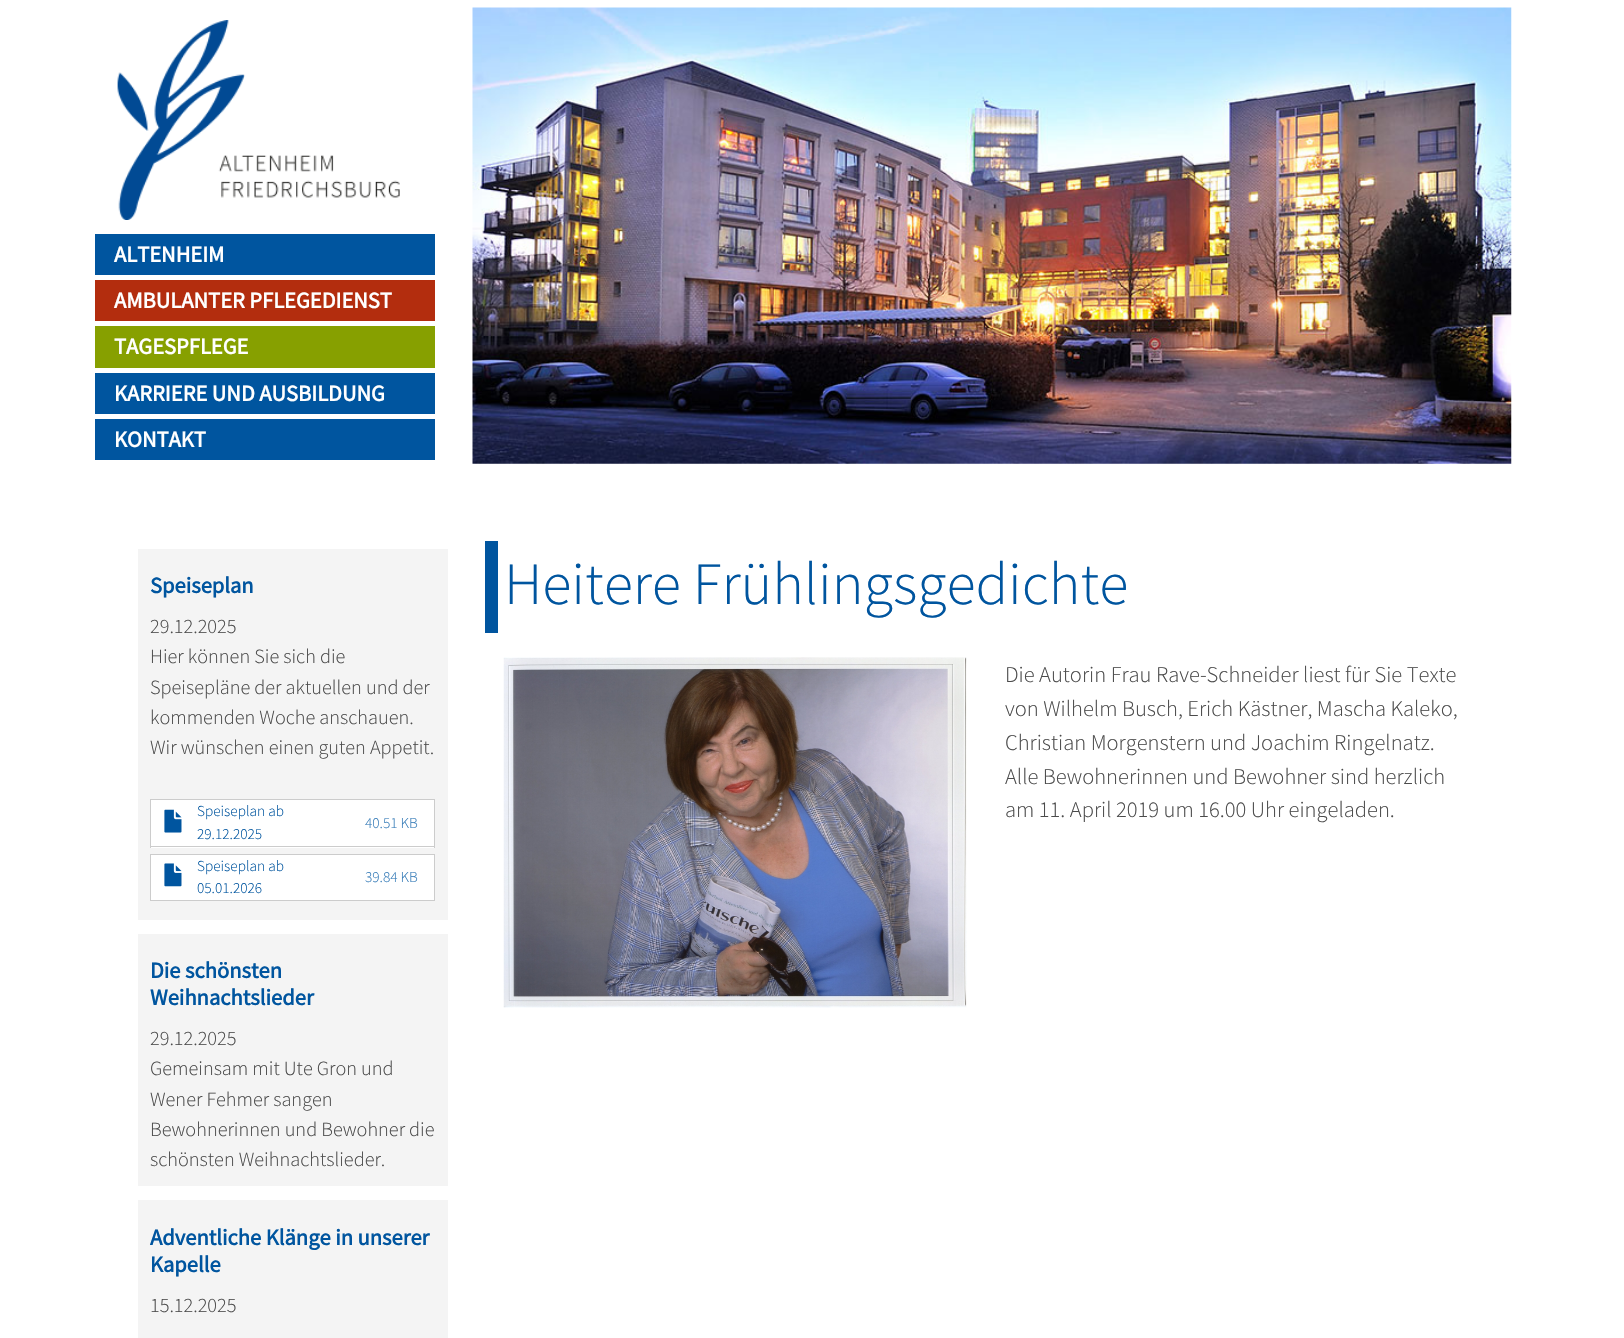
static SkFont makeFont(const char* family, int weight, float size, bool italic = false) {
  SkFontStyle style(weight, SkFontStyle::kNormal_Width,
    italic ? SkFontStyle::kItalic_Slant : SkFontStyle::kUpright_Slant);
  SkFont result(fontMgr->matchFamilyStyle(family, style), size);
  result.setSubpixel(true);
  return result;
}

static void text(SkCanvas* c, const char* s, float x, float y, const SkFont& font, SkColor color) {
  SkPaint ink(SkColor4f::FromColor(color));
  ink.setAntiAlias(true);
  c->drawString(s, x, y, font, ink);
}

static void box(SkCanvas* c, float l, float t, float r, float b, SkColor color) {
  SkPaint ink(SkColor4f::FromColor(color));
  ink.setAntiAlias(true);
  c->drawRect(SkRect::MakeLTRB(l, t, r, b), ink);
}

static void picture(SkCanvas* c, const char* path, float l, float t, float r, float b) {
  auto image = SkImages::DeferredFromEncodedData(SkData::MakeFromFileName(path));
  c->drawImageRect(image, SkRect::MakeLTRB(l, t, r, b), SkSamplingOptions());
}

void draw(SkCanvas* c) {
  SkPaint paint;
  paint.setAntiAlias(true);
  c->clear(0xffffffff);
  picture(c, "img_01.png", 117, 20, 400, 220);
  box(c, 95, 234, 435, 275, 0xff00559f);
  SkFont face1 = makeFont("Source Sans Pro", 700, 22.5f);
  text(c, "ALTENHEIM", 114, 262, face1, 0xffffffff);
  box(c, 95, 280, 435, 321, 0xffb32d0e);
  text(c, "AMBULANTER PFLEGEDIENST", 114, 308, face1, 0xffffffff);
  box(c, 95, 326, 435, 368, 0xff87a000);
  text(c, "TAGESPFLEGE", 114, 354, face1, 0xffffffff);
  box(c, 95, 373, 435, 414, 0xff00559f);
  text(c, "KARRIERE UND AUSBILDUNG", 114, 401, face1, 0xffffffff);
  box(c, 95, 419, 435, 460, 0xff00559f);
  text(c, "KONTAKT", 114, 447, face1, 0xffffffff);
  picture(c, "img_02.png", 472, 7, 1512, 464);
  box(c, 138, 549, 448, 920, 0xfff4f4f4);
  text(c, "Speiseplan", 150, 593, face1, 0xff00559f);
  SkFont face2 = makeFont("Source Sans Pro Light", 300, 20.25f);
  text(c, "29.12.2025", 150, 633, face2, 0xff4b4b4b);
  text(c, "Hier können Sie sich die", 150, 663, face2, 0xff4b4b4b);
  text(c, "Speisepläne der aktuellen und der", 150, 694, face2, 0xff4b4b4b);
  text(c, "kommenden Woche anschauen.", 150, 724, face2, 0xff4b4b4b);
  text(c, "Wir wünschen einen guten Appetit.", 150, 754, face2, 0xff4b4b4b);
  box(c, 151, 800, 434, 848, 0xffffffff);
  box(c, 150, 799, 435, 800, 0xffcccccc);
  box(c, 150, 846, 350, 847, 0xffcccccc);
  box(c, 150, 799, 151, 848, 0xffcccccc);
  picture(c, "img_03.png", 164, 809, 182, 833);
  SkFont face3 = makeFont("Source Sans Pro Light", 300, 15.25f);
  text(c, "Speiseplan ab", 197, 816, face3, 0xff00559f);
  text(c, "29.12.2025", 197, 839, face3, 0xff00559f);
  box(c, 434, 799, 435, 848, 0xffcccccc);
  box(c, 350, 846, 435, 847, 0xffcccccc);
  text(c, "40.51 KB", 365, 828, face3, 0xff337ab7);
  box(c, 151, 855, 434, 900, 0xffffffff);
  box(c, 150, 854, 435, 855, 0xffcccccc);
  box(c, 150, 900, 350, 901, 0xffcccccc);
  box(c, 150, 854, 151, 901, 0xffcccccc);
  picture(c, "img_04.png", 164, 863, 182, 887);
  text(c, "Speiseplan ab", 197, 871, face3, 0xff00559f);
  text(c, "05.01.2026", 197, 893, face3, 0xff00559f);
  box(c, 434, 854, 435, 901, 0xffcccccc);
  box(c, 350, 900, 435, 901, 0xffcccccc);
  text(c, "39.84 KB", 365, 882, face3, 0xff337ab7);
  box(c, 138, 934, 448, 1186, 0xfff4f4f4);
  text(c, "Die schönsten", 150, 978, face1, 0xff00559f);
  text(c, "Weihnachtslieder", 150, 1005, face1, 0xff00559f);
  text(c, "29.12.2025", 150, 1045, face2, 0xff4b4b4b);
  text(c, "Gemeinsam mit Ute Gron und", 150, 1075, face2, 0xff4b4b4b);
  text(c, "Wener Fehmer sangen", 150, 1106, face2, 0xff4b4b4b);
  text(c, "Bewohnerinnen und Bewohner die", 150, 1136, face2, 0xff4b4b4b);
  text(c, "schönsten Weihnachtslieder.", 150, 1166, face2, 0xff4b4b4b);
  box(c, 138, 1200, 448, 1338, 0xfff4f4f4);
  text(c, "Adventliche Klänge in unserer", 150, 1245, face1, 0xff00559f);
  text(c, "Kapelle", 150, 1272, face1, 0xff00559f);
  text(c, "15.12.2025", 150, 1312, face2, 0xff4b4b4b);
  box(c, 485, 541, 498, 633, 0xff00559f);
  SkFont face4 = makeFont("Source Sans Pro Light", 300, 60);
  text(c, "Heitere Frühlingsgedichte", 504, 604, face4, 0xff00559f);
  picture(c, "img_05.png", 503, 657, 967, 1008);
  SkFont face5 = makeFont("Source Sans Pro Light", 300, 22.5f);
  text(c, "Die Autorin Frau Rave-Schneider liest für Sie Texte", 1005, 682, face5, 0xff4b4b4b);
  text(c, "von Wilhelm Busch, Erich Kästner, Mascha Kaleko,", 1005, 716, face5, 0xff4b4b4b);
  text(c, "Christian Morgenstern und Joachim Ringelnatz.", 1005, 750, face5, 0xff4b4b4b);
  text(c, "Alle Bewohnerinnen und Bewohner sind herzlich", 1005, 784, face5, 0xff4b4b4b);
  text(c, "am 11. April 2019 um 16.00 Uhr eingeladen.", 1005, 817, face5, 0xff4b4b4b);
}
